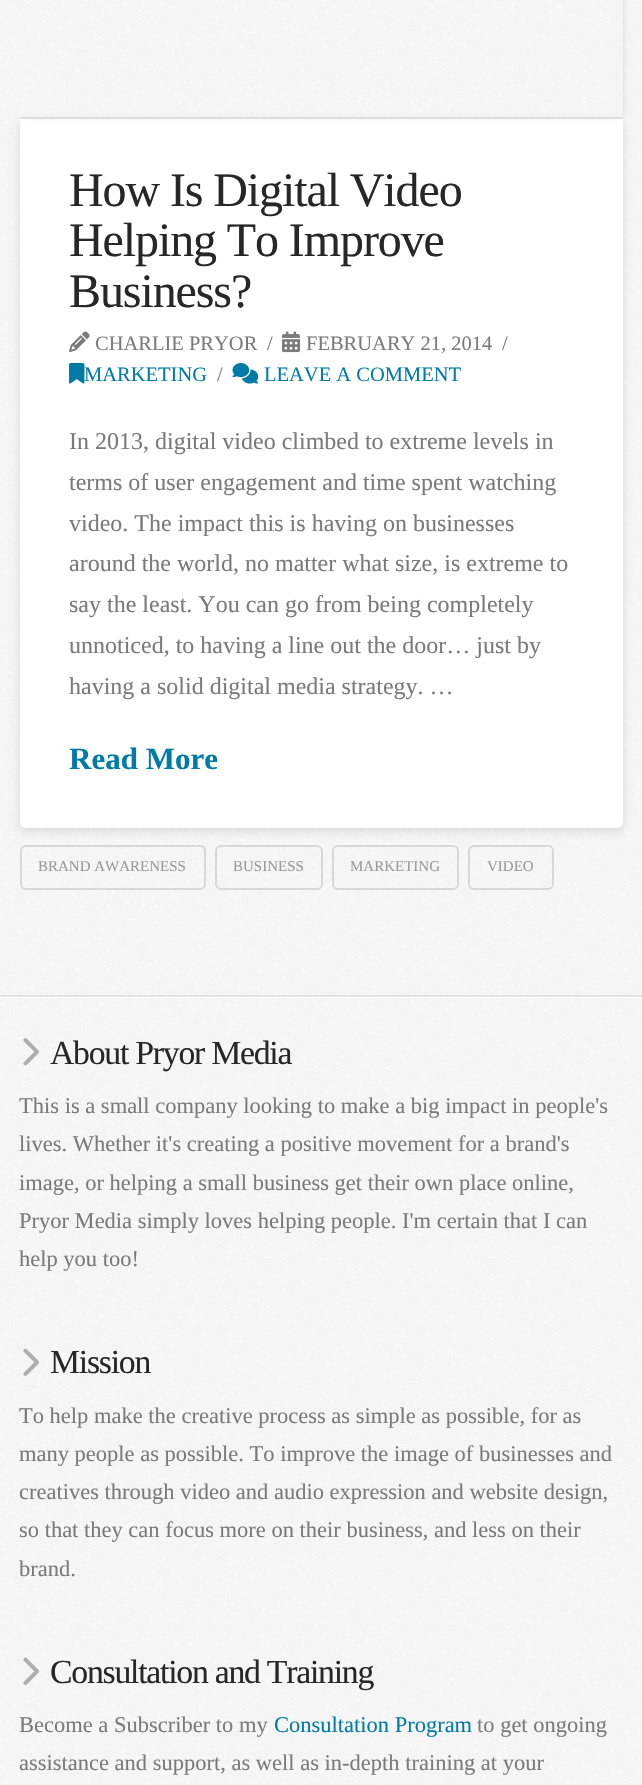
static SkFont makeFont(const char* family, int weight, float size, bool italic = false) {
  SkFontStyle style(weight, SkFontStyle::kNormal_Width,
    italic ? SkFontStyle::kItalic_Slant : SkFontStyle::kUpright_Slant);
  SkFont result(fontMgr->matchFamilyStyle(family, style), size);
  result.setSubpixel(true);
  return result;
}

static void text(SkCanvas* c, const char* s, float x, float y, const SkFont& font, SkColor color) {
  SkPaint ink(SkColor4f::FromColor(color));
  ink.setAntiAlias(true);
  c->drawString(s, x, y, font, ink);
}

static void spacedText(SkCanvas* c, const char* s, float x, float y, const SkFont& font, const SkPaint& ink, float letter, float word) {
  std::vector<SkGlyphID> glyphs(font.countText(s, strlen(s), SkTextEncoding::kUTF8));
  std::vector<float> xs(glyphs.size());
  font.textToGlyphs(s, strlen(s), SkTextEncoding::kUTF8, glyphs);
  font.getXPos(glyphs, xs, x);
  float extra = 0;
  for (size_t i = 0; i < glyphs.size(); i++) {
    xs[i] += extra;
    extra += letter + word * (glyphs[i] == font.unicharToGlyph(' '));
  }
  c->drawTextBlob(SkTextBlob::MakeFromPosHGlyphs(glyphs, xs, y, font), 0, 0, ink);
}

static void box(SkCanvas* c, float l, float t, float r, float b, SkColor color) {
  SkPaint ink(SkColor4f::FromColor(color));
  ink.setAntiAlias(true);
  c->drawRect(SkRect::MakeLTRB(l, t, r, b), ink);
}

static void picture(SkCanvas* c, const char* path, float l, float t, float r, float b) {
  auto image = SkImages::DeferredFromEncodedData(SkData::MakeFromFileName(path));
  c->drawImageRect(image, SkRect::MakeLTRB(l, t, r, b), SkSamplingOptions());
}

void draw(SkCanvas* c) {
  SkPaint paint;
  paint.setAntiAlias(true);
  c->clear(0xffffffff);
  picture(c, "img_01.png", 0, 0, 642, 1785);
  paint.setColor(0x21000000);
  paint.setMaskFilter(SkMaskFilter::MakeBlur(kNormal_SkBlurStyle, 4));
  c->drawRoundRect(SkRect::MakeLTRB(20, 122, 623, 831), 6, 6, paint);
  paint.setMaskFilter(nullptr);
  paint.setColor(0xffffffff);
  c->drawPath(SkPathBuilder().moveTo(20, 119).lineTo(623, 119).lineTo(623, 822).cubicTo(623, 825.5f, 620.5f, 828, 617, 828).lineTo(26, 828).cubicTo(22.5f, 828, 20, 825.5f, 20, 822).close().detach(), paint);
  c->save();
  c->clipPath(SkPathBuilder(SkPathFillType::kEvenOdd).moveTo(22, 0).lineTo(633, 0).lineTo(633, 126).lineTo(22, 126).close().moveTo(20, -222).lineTo(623, -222).lineTo(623, 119).lineTo(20, 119).close().detach(), true);
  paint.setColor(0x21000000);
  paint.setMaskFilter(SkMaskFilter::MakeBlur(kNormal_SkBlurStyle, 3));
  c->drawRect(SkRect::MakeLTRB(32, -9, 623, 116), paint);
  paint.setMaskFilter(nullptr);
  c->restore();
  box(c, 20, 117, 623, 119, 0xffdddddd);
  SkFont face1 = makeFont("Liberation Serif", 400, 48);
  paint.setColor(0xff272727);
  spacedText(c, "How Is Digital Video", 69, 206, face1, paint, -1.1f, 0);
  spacedText(c, "Helping To Improve", 69, 256, face1, paint, -1.1f, 0);
  spacedText(c, "Business?", 69, 307, face1, paint, -1.1f, 0);
  picture(c, "img_02.png", 69, 331, 90, 352);
  SkFont face2 = makeFont("Liberation Serif", 400, 20.5f);
  text(c, "CHARLIE PRYOR", 95, 350, face2, 0xff7a7a7a);
  text(c, "/", 267, 350, face2, 0xff7a7a7a);
  picture(c, "img_03.png", 282, 331, 300, 353);
  text(c, "FEBRUARY 21, 2014", 306, 350, face2, 0xff7a7a7a);
  text(c, "/", 502, 350, face2, 0xff7a7a7a);
  picture(c, "img_04.png", 69, 363, 85, 384);
  text(c, "MARKETING", 84, 381, face2, 0xff007ba8);
  text(c, "/", 217, 381, face2, 0xff7a7a7a);
  picture(c, "img_05.png", 232, 363, 259, 384);
  text(c, "LEAVE A COMMENT", 264, 381, face2, 0xff007ba8);
  SkFont face3 = makeFont("Liberation Serif", 400, 24);
  text(c, "In 2013, digital video climbed to extreme levels in", 69, 449, face3, 0xff7a7a7a);
  text(c, "terms of user engagement and time spent watching", 69, 490, face3, 0xff7a7a7a);
  text(c, "video. The impact this is having on businesses", 69, 531, face3, 0xff7a7a7a);
  text(c, "around the world, no matter what size, is extreme to", 69, 571, face3, 0xff7a7a7a);
  text(c, "say the least. You can go from being completely", 69, 612, face3, 0xff7a7a7a);
  text(c, "unnoticed, to having a line out the door… just by", 69, 653, face3, 0xff7a7a7a);
  text(c, "having a solid digital media strategy. …", 69, 694, face3, 0xff7a7a7a);
  SkFont face4 = makeFont("Liberation Serif", 700, 31);
  text(c, "Read More", 69, 769, face4, 0xff007ba8);
  paint.setStyle(SkPaint::kStroke_Style);
  paint.setStrokeWidth(2);
  paint.setColor(0x1f000000);
  c->drawRoundRect(SkRect::MakeLTRB(21, 846, 205, 889), 5, 5, paint);
  SkFont face5 = makeFont("Liberation Serif", 400, 15);
  text(c, "BRAND AWARENESS", 38, 871, face5, 0xff999999);
  c->drawRoundRect(SkRect::MakeLTRB(216, 846, 322, 889), 5, 5, paint);
  text(c, "BUSINESS", 233, 871, face5, 0xff999999);
  c->drawRoundRect(SkRect::MakeLTRB(333, 846, 458, 889), 5, 5, paint);
  text(c, "MARKETING", 350, 871, face5, 0xff999999);
  c->drawRoundRect(SkRect::MakeLTRB(469, 846, 553, 889), 5, 5, paint);
  text(c, "VIDEO", 487, 871, face5, 0xff999999);
  box(c, 0, 996, 642, 998, 0xccffffff);
  box(c, 0, 995, 642, 997, 0x17000000);
  picture(c, "img_06.png", 23, 1038, 39, 1066);
  SkFont face6 = makeFont("Liberation Serif", 400, 33.75f);
  paint.setStyle(SkPaint::kFill_Style);
  paint.setColor(0xff272727);
  spacedText(c, "About Pryor Media", 50, 1064, face6, paint, -1.25f, 0);
  SkFont face7 = makeFont("Liberation Serif", 400, 22.5f);
  text(c, "This is a small company looking to make a big impact in people's", 19, 1113, face7, 0xff7a7a7a);
  text(c, "lives. Whether it's creating a positive movement for a brand's", 19, 1151, face7, 0xff7a7a7a);
  text(c, "image, or helping a small business get their own place online,", 19, 1190, face7, 0xff7a7a7a);
  text(c, "Pryor Media simply loves helping people. I'm certain that I can", 19, 1228, face7, 0xff7a7a7a);
  text(c, "help you too!", 19, 1266, face7, 0xff7a7a7a);
  picture(c, "img_07.png", 23, 1348, 39, 1376);
  spacedText(c, "Mission", 50, 1373, face6, paint, -1.25f, 0);
  text(c, "To help make the creative process as simple as possible, for as", 19, 1423, face7, 0xff7a7a7a);
  text(c, "many people as possible. To improve the image of businesses and", 19, 1461, face7, 0xff7a7a7a);
  text(c, "creatives through video and audio expression and website design,", 19, 1499, face7, 0xff7a7a7a);
  text(c, "so that they can focus more on their business, and less on their", 19, 1537, face7, 0xff7a7a7a);
  text(c, "brand.", 19, 1576, face7, 0xff7a7a7a);
  picture(c, "img_08.png", 23, 1657, 39, 1685);
  spacedText(c, "Consultation and Training", 50, 1683, face6, paint, -1.25f, 0);
  text(c, "Become a Subscriber to my", 19, 1732, face7, 0xff7a7a7a);
  text(c, "Consultation Program", 274, 1732, face7, 0xff007ba8);
  text(c, "to get ongoing", 477, 1732, face7, 0xff7a7a7a);
  text(c, "assistance and support, as well as in-depth training at your", 19, 1770, face7, 0xff7a7a7a);
}
